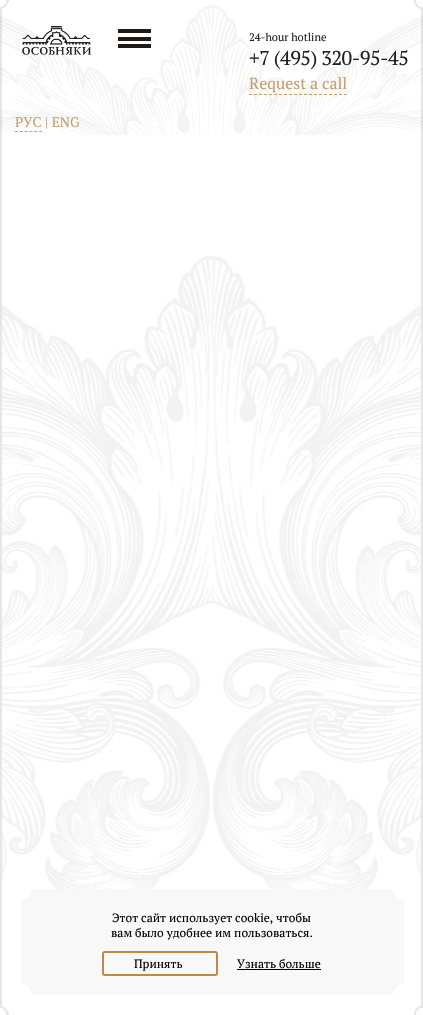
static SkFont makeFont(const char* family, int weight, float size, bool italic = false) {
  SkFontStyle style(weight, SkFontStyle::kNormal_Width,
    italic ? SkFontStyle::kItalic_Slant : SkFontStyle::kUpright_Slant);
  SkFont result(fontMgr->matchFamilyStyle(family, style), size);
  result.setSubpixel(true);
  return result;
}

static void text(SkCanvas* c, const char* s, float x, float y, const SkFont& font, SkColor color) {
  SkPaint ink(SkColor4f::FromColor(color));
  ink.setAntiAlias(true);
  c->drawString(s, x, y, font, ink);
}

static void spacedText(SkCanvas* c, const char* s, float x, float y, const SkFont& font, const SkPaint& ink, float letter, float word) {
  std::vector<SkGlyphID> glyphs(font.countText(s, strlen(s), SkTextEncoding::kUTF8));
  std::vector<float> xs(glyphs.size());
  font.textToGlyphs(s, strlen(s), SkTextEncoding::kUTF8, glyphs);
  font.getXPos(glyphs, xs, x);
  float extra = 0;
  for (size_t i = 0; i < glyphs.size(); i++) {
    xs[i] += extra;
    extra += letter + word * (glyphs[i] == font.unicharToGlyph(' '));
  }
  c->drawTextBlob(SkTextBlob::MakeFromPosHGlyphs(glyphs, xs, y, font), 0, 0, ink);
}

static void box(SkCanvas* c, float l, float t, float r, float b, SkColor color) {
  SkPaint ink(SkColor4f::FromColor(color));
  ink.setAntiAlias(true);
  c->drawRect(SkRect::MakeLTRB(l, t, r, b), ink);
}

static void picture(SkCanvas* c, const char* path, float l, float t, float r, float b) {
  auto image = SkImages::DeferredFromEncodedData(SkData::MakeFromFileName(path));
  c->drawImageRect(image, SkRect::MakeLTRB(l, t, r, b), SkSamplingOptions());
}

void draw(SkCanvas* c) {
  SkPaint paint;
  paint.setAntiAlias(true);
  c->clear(0xffffffff);
  picture(c, "img_01.png", 2, 256, 421, 907);
  picture(c, "img_02.png", 0, 0, 9, 9);
  box(c, 0, 9, 2, 1006, 0xffe6e6e6);
  picture(c, "img_03.png", 0, 1006, 9, 1015);
  picture(c, "img_04.png", 414, 0, 423, 9);
  box(c, 421, 9, 423, 1006, 0xffe6e6e6);
  picture(c, "img_05.png", 414, 1006, 423, 1015);
  picture(c, "img_06.png", 0, 5, 423, 135);
  SkFont face1 = makeFont("PT Serif", 400, 11);
  text(c, "24-hour hotline", 249, 41, face1, 0xff231f20);
  SkFont face2 = makeFont("PT Serif", 400, 20);
  paint.setColor(0xff231f20);
  spacedText(c, "+7 (495) 320-95-45", 249, 65, face2, paint, -0.5f, 0);
  paint.setStyle(SkPaint::kStroke_Style);
  paint.setStrokeWidth(1);
  paint.setColor(0xffc79c6e);
  paint.setPathEffect(SkDashPathEffect::Make({{3, 2}}, 0));
  c->drawPath(SkPathBuilder().moveTo(249, 94.5f).lineTo(347, 94.5f).detach(), paint);
  paint.setPathEffect(nullptr);
  SkFont face3 = makeFont("PT Serif", 400, 16);
  text(c, "Request a call", 249, 89, face3, 0xffc79c6e);
  picture(c, "img_07.png", 22, 26, 91, 55);
  picture(c, "img_08.png", 118, 29, 151, 48);
  SkFont face4 = makeFont("PT Serif", 400, 14);
  text(c, "РУС | ENG", 15, 127, face4, 0xffc79c6e);
  paint.setPathEffect(SkDashPathEffect::Make({{3, 1.8f}}, 0));
  c->drawPath(SkPathBuilder().moveTo(15, 131.5f).lineTo(42, 131.5f).detach(), paint);
  paint.setPathEffect(nullptr);
  paint.setStyle(SkPaint::kFill_Style);
  {
    const SkColor colors[] = {0xffffffff, 0xfff8f8f8};
    const float stops[] = {0.05f, 0.05f};
    paint.setShader(SkGradientShader::MakeRadial({21, 995}, 219, colors, stops, 2, SkTileMode::kClamp));
    paint.setAlpha(255);
  }
  c->drawRect(SkRect::MakeLTRB(21, 947, 193, 995), paint);
  {
    const SkColor colors[] = {0x00f8f8f8, 0xfff8f8f8};
    const float stops[] = {0.05f, 0.05f};
    paint.setShader(SkGradientShader::MakeRadial({404, 995}, 219, colors, stops, 2, SkTileMode::kClamp));
    paint.setAlpha(255);
  }
  c->drawRect(SkRect::MakeLTRB(193, 947, 404, 995), paint);
  {
    const SkColor colors[] = {0x00f8f8f8, 0xfff8f8f8};
    const float stops[] = {0.05f, 0.05f};
    paint.setShader(SkGradientShader::MakeRadial({404, 889}, 219, colors, stops, 2, SkTileMode::kClamp));
    paint.setAlpha(255);
  }
  c->drawRect(SkRect::MakeLTRB(231, 889, 404, 947), paint);
  {
    const SkColor colors[] = {0x00f8f8f8, 0xfff8f8f8};
    const float stops[] = {0.05f, 0.05f};
    paint.setShader(SkGradientShader::MakeRadial({21, 889}, 219, colors, stops, 2, SkTileMode::kClamp));
    paint.setAlpha(255);
  }
  c->drawRect(SkRect::MakeLTRB(21, 889, 231, 947), paint);
  SkFont face5 = makeFont("PT Serif", 400, 12);
  text(c, "Этот сайт использует cookie, чтобы", 112, 922, face5, 0xff000000);
  text(c, "вам было удобнее им пользоваться.", 111, 937, face5, 0xff000000);
  paint.setStyle(SkPaint::kStroke_Style);
  paint.setStrokeWidth(2);
  paint.setShader(nullptr);
  paint.setColor(0xffbc8947);
  c->drawRoundRect(SkRect::MakeLTRB(103, 952, 217, 975), 2, 2, paint);
  text(c, "Принять", 134, 968, face5, 0xff000000);
  text(c, "Узнать больше", 237, 968, face5, 0xff000000);
  box(c, 237, 969, 321, 970, 0xff000000);
}
